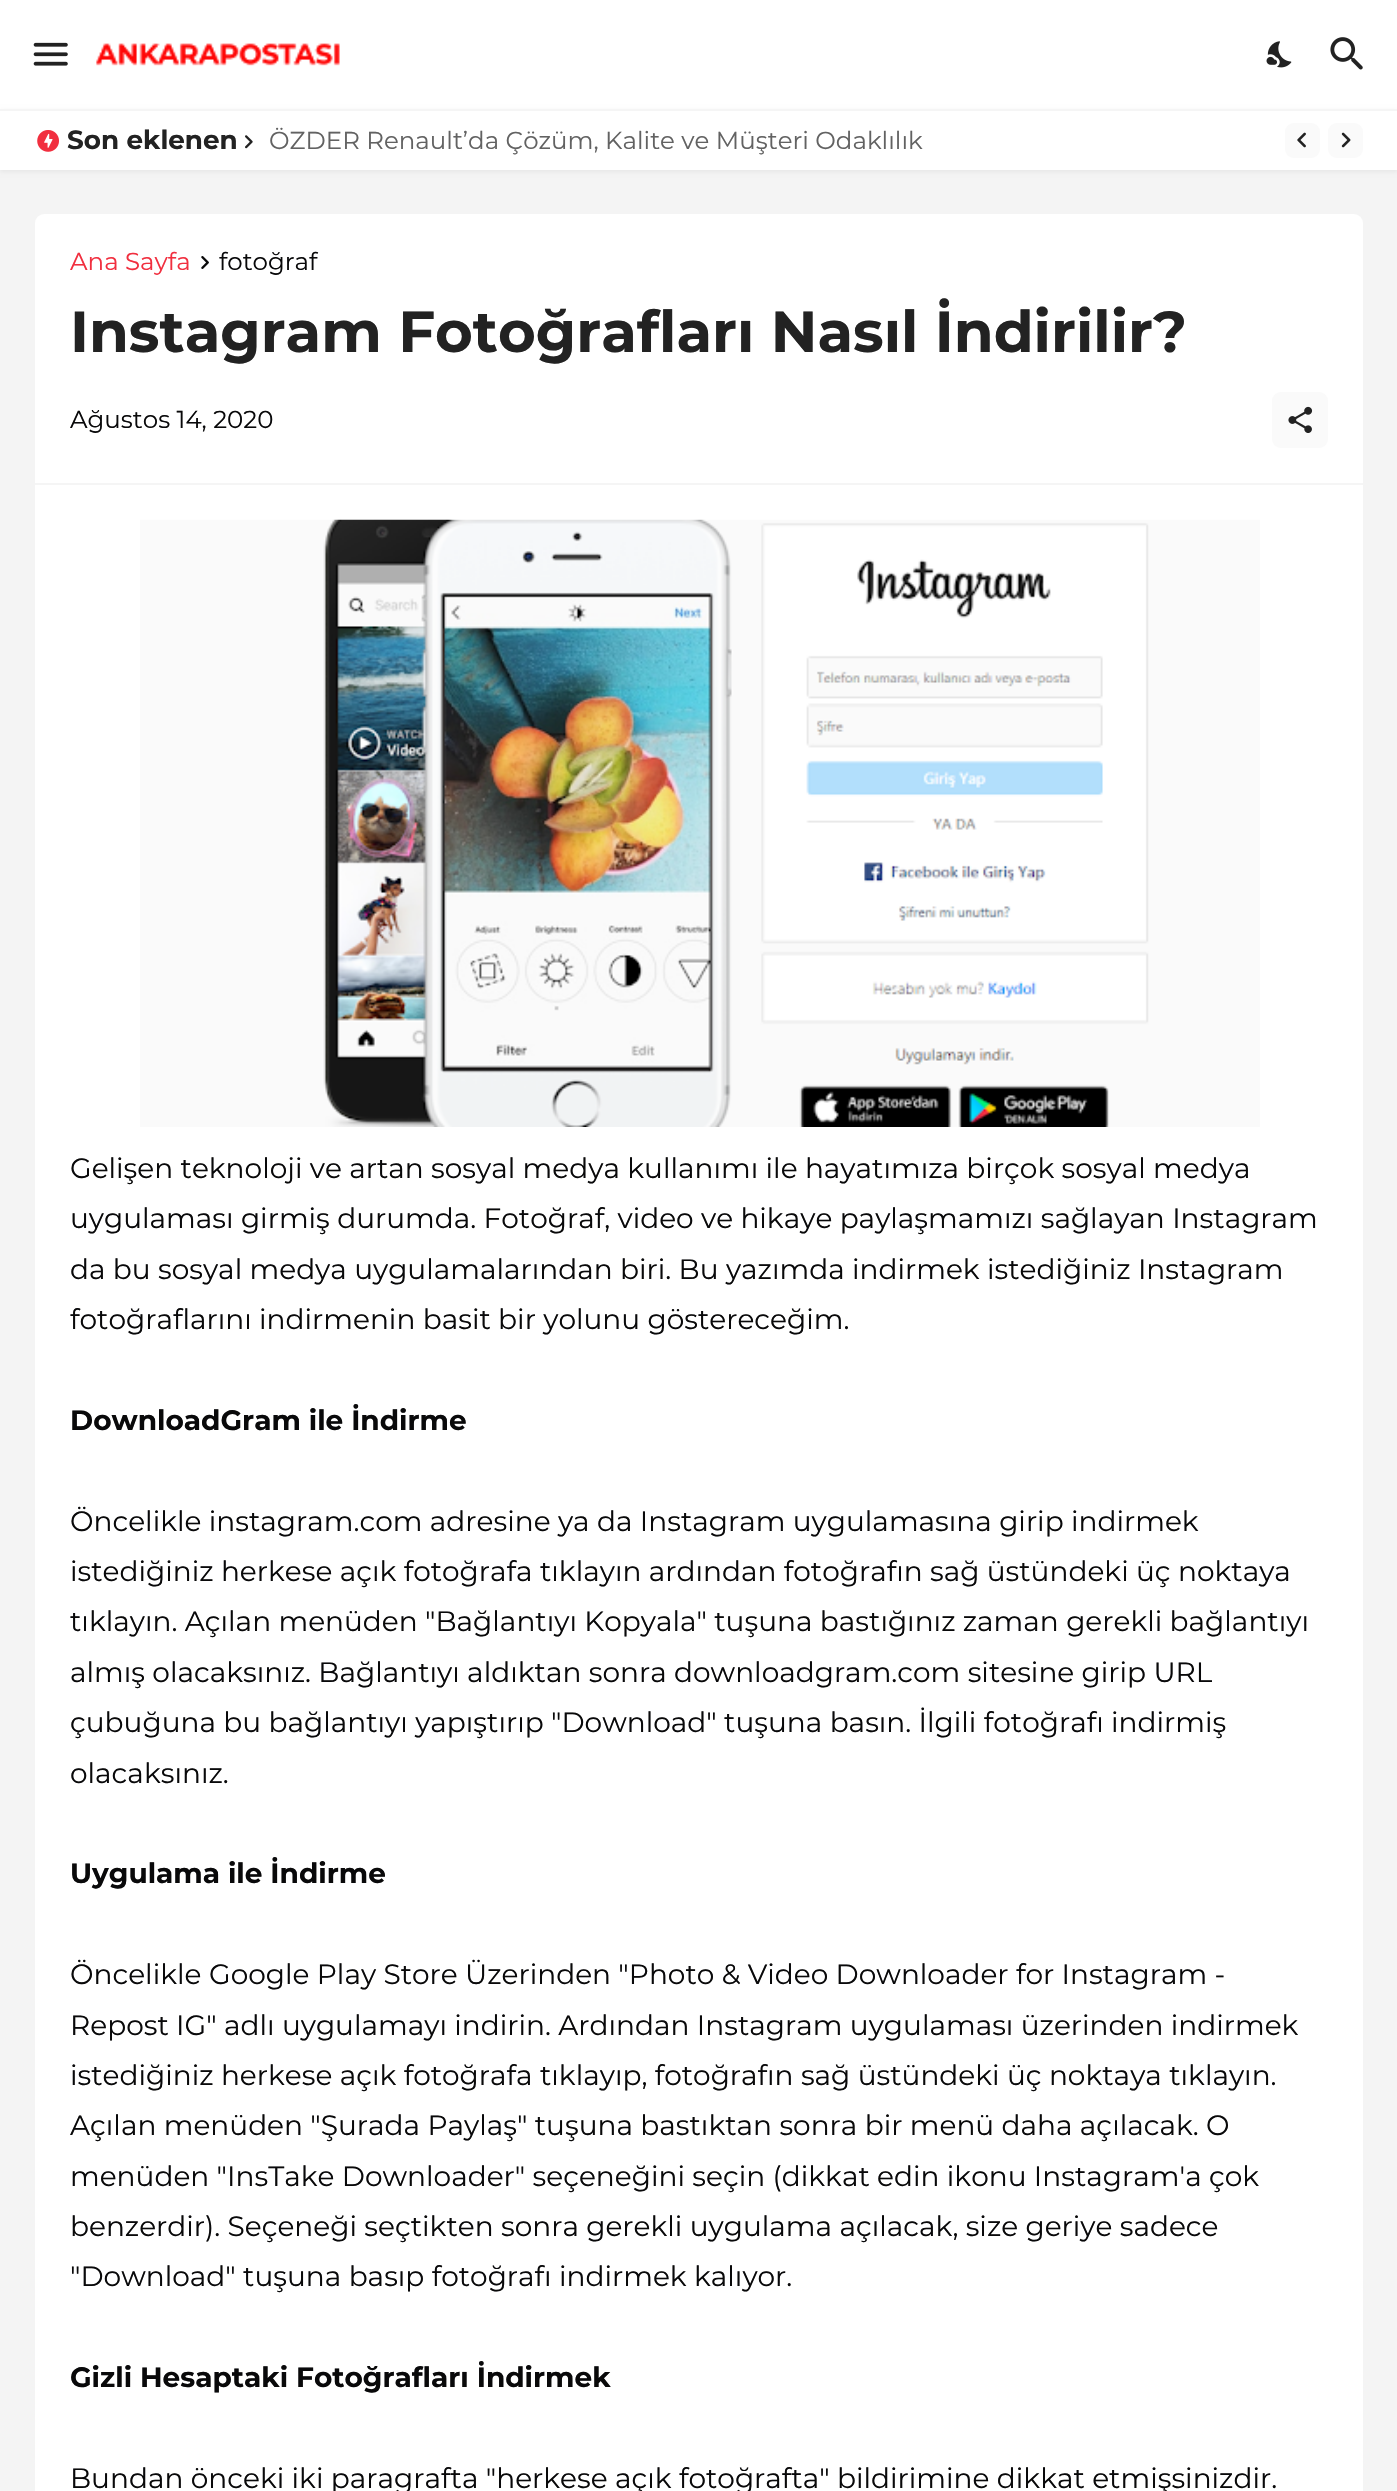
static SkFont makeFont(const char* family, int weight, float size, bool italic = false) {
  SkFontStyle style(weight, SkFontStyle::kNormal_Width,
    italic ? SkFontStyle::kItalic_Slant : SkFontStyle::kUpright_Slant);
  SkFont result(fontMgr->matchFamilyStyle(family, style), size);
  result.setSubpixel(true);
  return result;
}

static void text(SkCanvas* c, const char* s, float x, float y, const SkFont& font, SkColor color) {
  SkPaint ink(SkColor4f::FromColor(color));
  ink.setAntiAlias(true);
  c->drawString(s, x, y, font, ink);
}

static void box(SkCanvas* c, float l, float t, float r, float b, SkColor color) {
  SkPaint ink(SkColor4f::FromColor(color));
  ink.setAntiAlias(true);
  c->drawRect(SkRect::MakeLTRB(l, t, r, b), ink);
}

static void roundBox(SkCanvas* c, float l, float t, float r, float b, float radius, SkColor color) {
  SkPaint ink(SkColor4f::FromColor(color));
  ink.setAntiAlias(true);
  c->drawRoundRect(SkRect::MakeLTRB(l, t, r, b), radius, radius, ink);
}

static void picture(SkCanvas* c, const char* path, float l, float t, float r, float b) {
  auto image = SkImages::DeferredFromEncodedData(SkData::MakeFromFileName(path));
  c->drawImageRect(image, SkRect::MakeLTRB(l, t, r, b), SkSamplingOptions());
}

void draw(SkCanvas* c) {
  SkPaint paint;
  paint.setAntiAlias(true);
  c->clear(0xfff4f4f4);
  box(c, 0, 0, 1397, 109, 0xffffffff);
  picture(c, "img_01.png", 33, 42, 68, 66);
  picture(c, "img_02.png", 96, 43, 340, 66);
  picture(c, "img_03.png", 1266, 41, 1292, 68);
  picture(c, "img_04.png", 1330, 37, 1363, 70);
  paint.setColor(0x0d000000);
  paint.setMaskFilter(SkMaskFilter::MakeBlur(kNormal_SkBlurStyle, 2));
  c->drawRect(SkRect::MakeLTRB(0, 110, 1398, 172), paint);
  paint.setMaskFilter(nullptr);
  box(c, 0, 111, 1397, 170, 0xffffffff);
  box(c, 0, 109, 1397, 111, 0xfff5f5f5);
  picture(c, "img_05.png", 37, 130, 59, 152);
  SkFont face1 = makeFont("Montserrat", 700, 26.25f);
  text(c, "Son eklenen", 67, 149, face1, 0xff222222);
  picture(c, "img_06.png", 245, 135, 253, 149);
  SkFont face2 = makeFont("Montserrat", 400, 24.5f);
  text(c, "ÖZDER Renault’da Çözüm, Kalite ve Müşteri Odaklılık", 269, 149, face2, 0xff626262);
  roundBox(c, 1285, 123, 1320, 158, 9, 0xfffafafa);
  picture(c, "img_07.png", 1297, 132, 1306, 148);
  roundBox(c, 1328, 123, 1363, 158, 9, 0xfffafafa);
  picture(c, "img_08.png", 1341, 132, 1351, 148);
  roundBox(c, 35, 214, 1363, 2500, 9, 0xffffffff);
  box(c, 35, 483, 1363, 485, 0xfff5f5f5);
  text(c, "Ana Sayfa", 70, 270, face2, 0xfff12f3f);
  picture(c, "img_09.png", 201, 256, 209, 269);
  text(c, "fotoğraf", 219, 270, face2, 0xff09090a);
  SkFont face3 = makeFont("Montserrat", 700, 57.75f);
  text(c, "Instagram Fotoğrafları Nasıl İndirilir?", 70, 352, face3, 0xff222222);
  text(c, "Ağustos 14, 2020", 70, 428, face2, 0xff09090a);
  roundBox(c, 1272, 392, 1328, 448, 9, 0xfffafafa);
  picture(c, "img_10.png", 1288, 406, 1313, 433);
  picture(c, "img_11.png", 140, 519, 1260, 1127);
  SkFont face4 = makeFont("Montserrat", 400, 28);
  text(c, "Gelişen teknoloji ve artan sosyal medya kullanımı ile hayatımıza birçok sosyal medya", 70, 1178, face4, 0xff09090a);
  text(c, "uygulaması girmiş durumda. Fotoğraf, video ve hikaye paylaşmamızı sağlayan Instagram", 70, 1228, face4, 0xff09090a);
  text(c, "da bu sosyal medya uygulamalarından biri. Bu yazımda indirmek istediğiniz Instagram", 70, 1279, face4, 0xff09090a);
  text(c, "fotoğraflarını indirmenin basit bir yolunu göstereceğim.", 70, 1329, face4, 0xff09090a);
  SkFont face5 = makeFont("Montserrat", 700, 28);
  text(c, "DownloadGram ile İndirme", 70, 1430, face5, 0xff09090a);
  text(c, "Öncelikle instagram.com adresine ya da Instagram uygulamasına girip indirmek", 70, 1531, face4, 0xff09090a);
  text(c, "istediğiniz herkese açık fotoğrafa tıklayın ardından fotoğrafın sağ üstündeki üç noktaya", 70, 1581, face4, 0xff09090a);
  text(c, "tıklayın. Açılan menüden \"Bağlantıyı Kopyala\" tuşuna bastığınız zaman gerekli bağlantıyı", 70, 1631, face4, 0xff09090a);
  text(c, "almış olacaksınız. Bağlantıyı aldıktan sonra downloadgram.com sitesine girip URL", 70, 1682, face4, 0xff09090a);
  text(c, "çubuğuna bu bağlantıyı yapıştırıp \"Download\" tuşuna basın. İlgili fotoğrafı indirmiş", 70, 1732, face4, 0xff09090a);
  text(c, "olacaksınız.", 70, 1783, face4, 0xff09090a);
  text(c, "Uygulama ile İndirme", 70, 1883, face5, 0xff09090a);
  text(c, "Öncelikle", 70, 1984, face4, 0xff09090a);
  text(c, "Google Play Store Üzerinden \"Photo & Video Downloader for Instagram -", 209, 1984, face4, 0xff09090a);
  text(c, "Repost IG\" adlı uygulamayı indirin. Ardından Instagram uygulaması üzerinden indirmek", 70, 2035, face4, 0xff09090a);
  text(c, "istediğiniz herkese açık fotoğrafa tıklayıp, fotoğrafın sağ üstündeki üç noktaya tıklayın.", 70, 2085, face4, 0xff09090a);
  text(c, "Açılan menüden \"Şurada Paylaş\" tuşuna bastıktan sonra bir menü daha açılacak. O", 70, 2135, face4, 0xff09090a);
  text(c, "menüden \"InsTake Downloader\" seçeneğini seçin (dikkat edin ikonu Instagram'a çok", 70, 2186, face4, 0xff09090a);
  text(c, "benzerdir). Seçeneği seçtikten sonra gerekli uygulama açılacak, size geriye sadece", 70, 2236, face4, 0xff09090a);
  text(c, "\"Download\" tuşuna basıp fotoğrafı indirmek kalıyor.", 70, 2286, face4, 0xff09090a);
  text(c, "Gizli Hesaptaki Fotoğrafları İndirmek", 70, 2387, face5, 0xff09090a);
  text(c, "Bundan önceki iki paragrafta \"herkese açık fotoğrafta\" bildirimine dikkat etmişsinizdir.", 70, 2488, face4, 0xff09090a);
}
